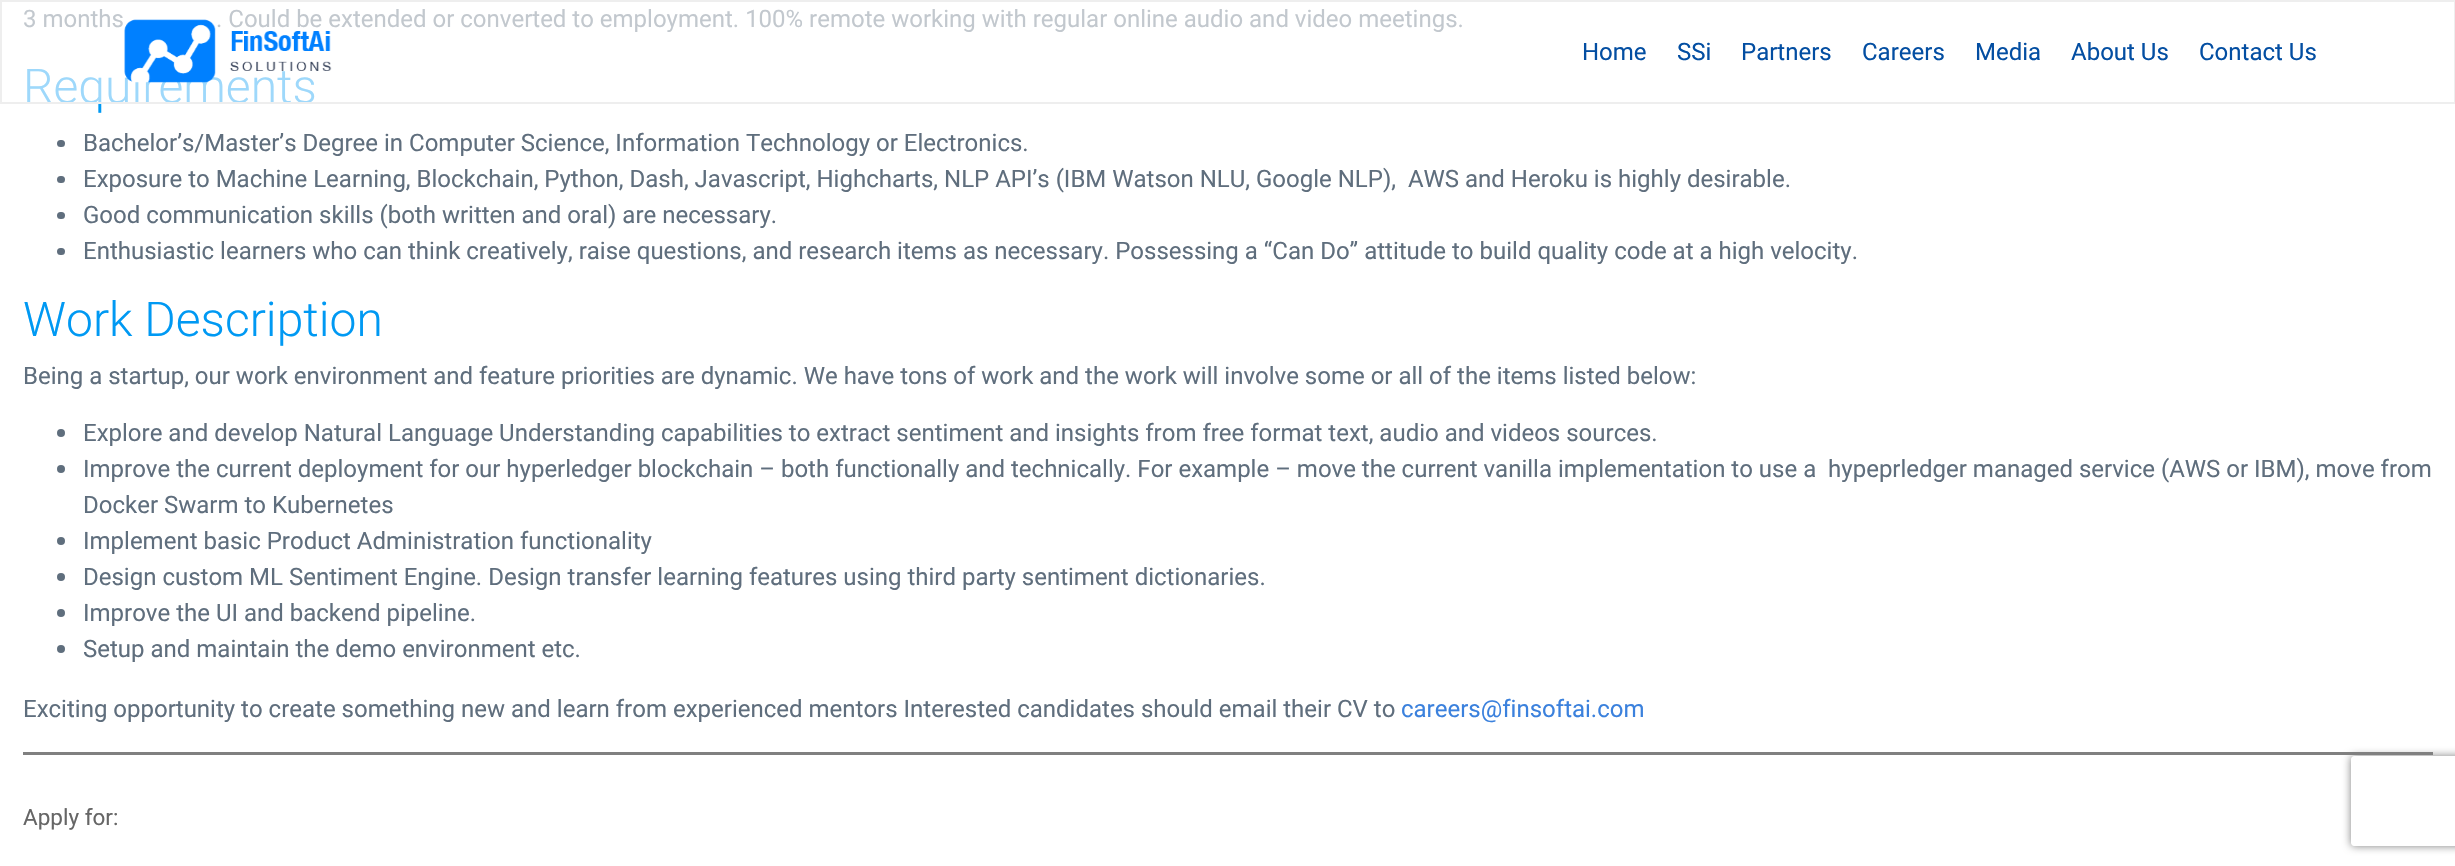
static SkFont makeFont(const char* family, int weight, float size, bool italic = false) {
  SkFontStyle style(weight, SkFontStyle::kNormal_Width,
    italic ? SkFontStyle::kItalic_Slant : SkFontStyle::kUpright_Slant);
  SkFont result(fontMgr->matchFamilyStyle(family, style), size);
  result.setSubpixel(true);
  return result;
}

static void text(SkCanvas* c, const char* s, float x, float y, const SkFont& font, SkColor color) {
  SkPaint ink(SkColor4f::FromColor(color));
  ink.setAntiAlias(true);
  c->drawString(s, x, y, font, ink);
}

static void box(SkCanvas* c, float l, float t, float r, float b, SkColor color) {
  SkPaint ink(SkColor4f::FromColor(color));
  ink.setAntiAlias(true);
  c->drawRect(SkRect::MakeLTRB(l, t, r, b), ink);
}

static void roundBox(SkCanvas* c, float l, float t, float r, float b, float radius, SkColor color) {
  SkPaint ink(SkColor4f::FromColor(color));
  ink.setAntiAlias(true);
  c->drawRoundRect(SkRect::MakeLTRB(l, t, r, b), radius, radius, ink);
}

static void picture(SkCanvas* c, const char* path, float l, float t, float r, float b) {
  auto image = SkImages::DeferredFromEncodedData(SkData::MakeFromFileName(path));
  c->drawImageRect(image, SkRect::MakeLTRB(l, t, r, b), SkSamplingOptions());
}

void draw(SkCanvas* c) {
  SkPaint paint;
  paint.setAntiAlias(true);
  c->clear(0xffffffff);
  SkFont face1 = makeFont("Roboto", 400, 24);
  text(c, "3 months", 23, 27, face1, 0xff5f6e7d);
  text(c, ". Could be extended or converted to employment. 100% remote working with regular online audio and video meetings.", 216, 27, face1, 0xff5f6e7d);
  SkFont face2 = makeFont("Roboto", 300, 48);
  text(c, "Requirements", 23, 103, face2, 0xff0099f3);
  roundBox(c, 57, 140, 65, 147, 3.5f, 0xff5f6e7d);
  text(c, "Bachelor’s/Master’s Degree in Computer Science, Information Technology or Electronics.", 83, 151, face1, 0xff5f6e7d);
  roundBox(c, 57, 176, 65, 183, 3.5f, 0xff5f6e7d);
  text(c, "Exposure to Machine Learning, Blockchain, Python, Dash, Javascript, Highcharts, NLP API’s (IBM Watson NLU, Google NLP),  AWS and Heroku is highly desirable.", 83, 187, face1, 0xff5f6e7d);
  roundBox(c, 57, 212, 65, 219, 3.5f, 0xff5f6e7d);
  text(c, "Good communication skills (both written and oral) are necessary.", 83, 223, face1, 0xff5f6e7d);
  roundBox(c, 57, 248, 65, 255, 3.5f, 0xff5f6e7d);
  text(c, "Enthusiastic learners who can think creatively, raise questions, and research items as necessary. Possessing a “Can Do” attitude to build quality code at a high velocity.", 83, 259, face1, 0xff5f6e7d);
  text(c, "Work Description", 23, 336, face2, 0xff0099f3);
  text(c, "Being a startup, our work environment and feature priorities are dynamic. We have tons of work and the work will involve some or all of the items listed below:", 23, 384, face1, 0xff5f6e7d);
  paint.setColor(0xff5f6e7d);
  c->drawCircle(61, 433, 4, paint);
  text(c, "Explore and develop Natural Language Understanding capabilities to extract sentiment and insights from free format text, audio and videos sources.", 83, 441, face1, 0xff5f6e7d);
  c->drawCircle(61, 469, 4, paint);
  text(c, "Improve the current deployment for our hyperledger blockchain – both functionally and technically. For example – move the current vanilla implementation to use a  hypeprledger managed service (AWS or IBM), move from", 83, 477, face1, 0xff5f6e7d);
  text(c, "Docker Swarm to Kubernetes", 83, 513, face1, 0xff5f6e7d);
  c->drawCircle(61, 541, 4, paint);
  text(c, "Implement basic Product Administration functionality", 83, 549, face1, 0xff5f6e7d);
  c->drawCircle(61, 577, 4, paint);
  text(c, "Design custom ML Sentiment Engine. Design transfer learning features using third party sentiment dictionaries.", 83, 585, face1, 0xff5f6e7d);
  c->drawCircle(61, 613, 4, paint);
  text(c, "Improve the UI and backend pipeline.", 83, 621, face1, 0xff5f6e7d);
  c->drawCircle(61, 649, 4, paint);
  text(c, "Setup and maintain the demo environment etc.", 83, 657, face1, 0xff5f6e7d);
  text(c, "Exciting opportunity to create something new and learn from experienced mentors Interested candidates should email their CV to", 23, 717, face1, 0xff5f6e7d);
  text(c, "careers@finsoftai.com", 1401, 717, face1, 0xff3b81dd);
  box(c, 23, 752, 2433, 755, 0xff808080);
  SkFont face3 = makeFont("Roboto", 400, 22.5f);
  text(c, "Apply for:", 23, 825, face3, 0xff666666);
  box(c, 23, 9, 1462, 102, 0x9effffff);
  paint.setStyle(SkPaint::kStroke_Style);
  paint.setStrokeWidth(2);
  paint.setColor(0xffeeeeee);
  c->drawRect(SkRect::MakeLTRB(1, 1, 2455, 103), paint);
  picture(c, "img_01.png", 124, 19, 332, 83);
  text(c, "Home", 1582, 60, face1, 0xff034ea2);
  text(c, "SSi", 1677, 60, face1, 0xff034ea2);
  text(c, "Partners", 1741, 60, face1, 0xff034ea2);
  text(c, "Careers", 1862, 60, face1, 0xff034ea2);
  text(c, "Media", 1975, 60, face1, 0xff034ea2);
  text(c, "About Us", 2071, 60, face1, 0xff034ea2);
  text(c, "Contact Us", 2199, 60, face1, 0xff034ea2);
  c->save();
  c->clipPath(SkPathBuilder(SkPathFillType::kEvenOdd).moveTo(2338, 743).lineTo(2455, 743).lineTo(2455, 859).lineTo(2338, 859).close().moveTo(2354, 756).lineTo(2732, 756).cubicTo(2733.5f, 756, 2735, 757.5f, 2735, 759).lineTo(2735, 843).cubicTo(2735, 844.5f, 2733.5f, 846, 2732, 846).lineTo(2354, 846).cubicTo(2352.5f, 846, 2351, 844.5f, 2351, 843).lineTo(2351, 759).cubicTo(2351, 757.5f, 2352.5f, 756, 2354, 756).close().detach(), true);
  paint.setStyle(SkPaint::kFill_Style);
  paint.setColor(0xff808080);
  paint.setMaskFilter(SkMaskFilter::MakeBlur(kNormal_SkBlurStyle, 4));
  c->drawRoundRect(SkRect::MakeLTRB(2351, 756, 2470, 846), 3, 3, paint);
  paint.setMaskFilter(nullptr);
  c->restore();
}
